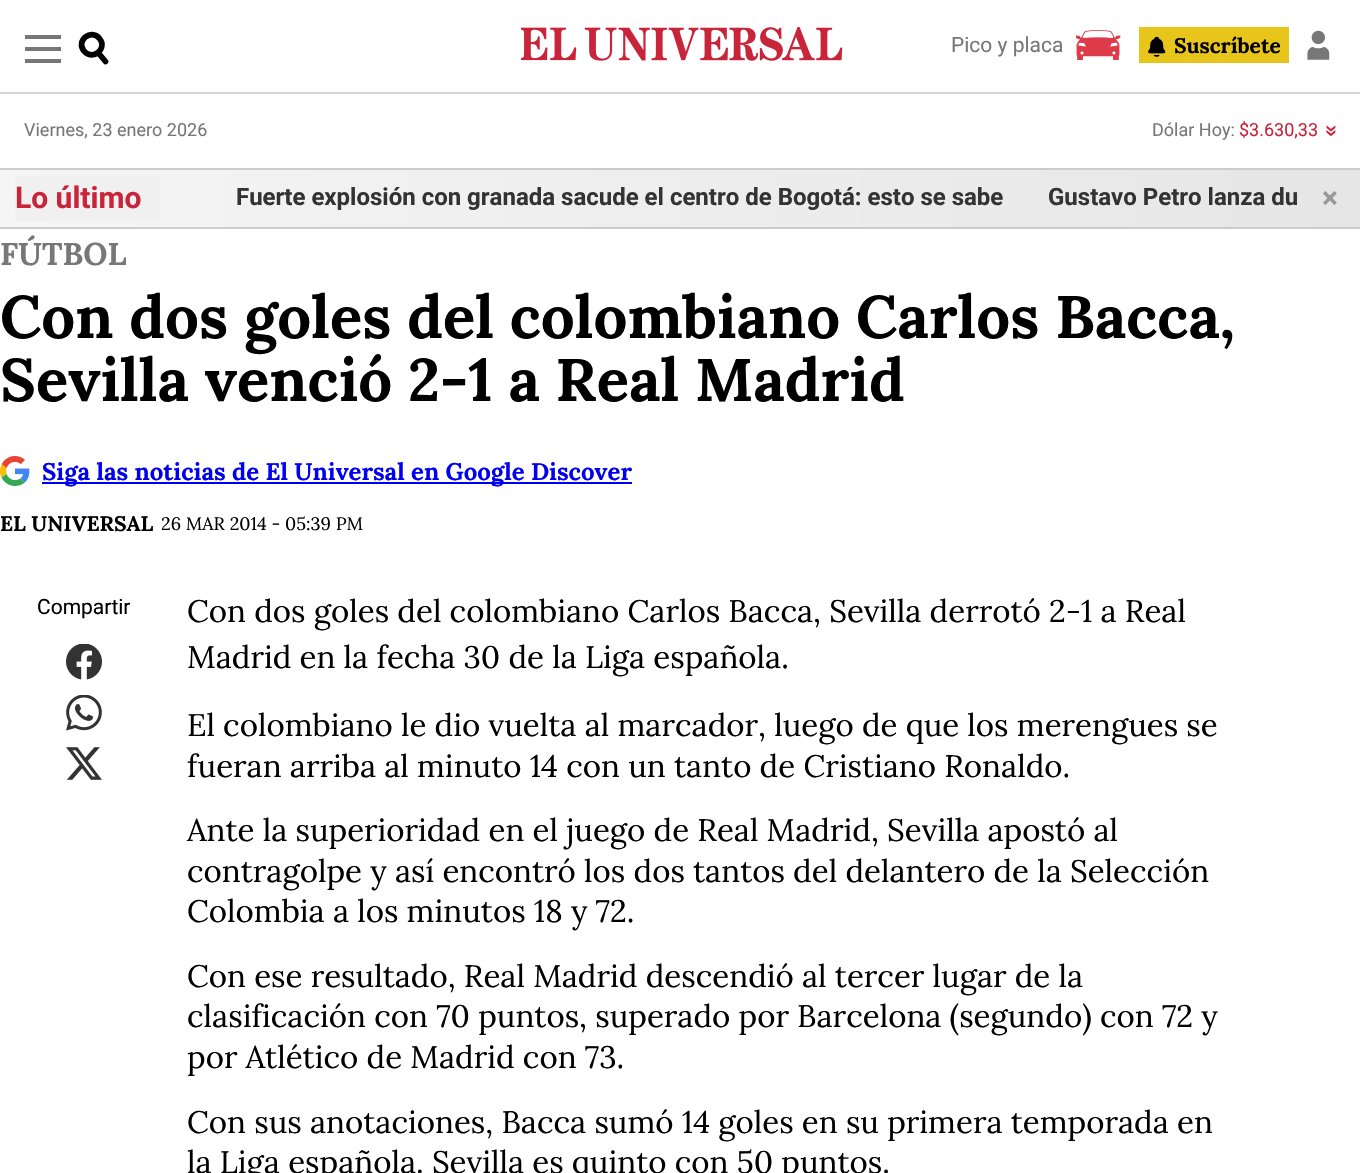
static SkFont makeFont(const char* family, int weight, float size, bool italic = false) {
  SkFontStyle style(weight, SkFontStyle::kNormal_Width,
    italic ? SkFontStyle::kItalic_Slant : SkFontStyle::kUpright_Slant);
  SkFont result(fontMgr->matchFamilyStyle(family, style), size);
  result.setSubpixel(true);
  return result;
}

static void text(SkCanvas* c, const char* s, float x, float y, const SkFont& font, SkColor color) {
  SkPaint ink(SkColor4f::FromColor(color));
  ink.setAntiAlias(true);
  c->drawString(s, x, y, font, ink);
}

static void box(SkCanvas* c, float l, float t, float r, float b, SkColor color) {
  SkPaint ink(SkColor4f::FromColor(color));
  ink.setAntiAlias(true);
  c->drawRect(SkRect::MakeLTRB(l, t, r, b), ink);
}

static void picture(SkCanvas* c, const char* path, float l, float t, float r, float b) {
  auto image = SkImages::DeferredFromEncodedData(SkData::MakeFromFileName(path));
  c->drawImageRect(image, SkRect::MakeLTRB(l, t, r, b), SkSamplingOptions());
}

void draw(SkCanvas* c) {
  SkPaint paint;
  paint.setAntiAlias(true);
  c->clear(0xffffffff);
  box(c, 0, 92, 1360, 94, 0xffd4d4d4);
  box(c, 25, 35, 61, 39, 0xff777777);
  box(c, 25, 47, 61, 51, 0xff777777);
  box(c, 25, 59, 61, 63, 0xff777777);
  paint.setStyle(SkPaint::kStroke_Style);
  paint.setStrokeWidth(5.7f);
  paint.setColor(0xff000000);
  c->drawPath(SkPathBuilder().moveTo(99.5f, 38.5f).cubicTo(108, 48.5f, 92.5f, 61.5f, 84, 51).cubicTo(75.5f, 41, 91, 28, 99.5f, 38.5f).close().detach(), paint);
  paint.setStrokeCap(SkPaint::kRound_Cap);
  c->drawPath(SkPathBuilder().moveTo(98, 52.5f).lineTo(105.5f, 61.5f).detach(), paint);
  picture(c, "img_01.png", 521, 27, 843, 61);
  SkFont face1 = makeFont("Roboto", 400, 21);
  text(c, "Pico y placa", 951, 52, face1, 0xff777777);
  picture(c, "img_02.png", 1076, 30, 1121, 60);
  box(c, 1139, 27, 1289, 63, 0xffe8c51a);
  picture(c, "img_03.png", 1148, 36, 1166, 57);
  SkFont face2 = makeFont("Lora", 700, 21);
  text(c, "Suscríbete", 1174, 53, face2, 0xff000000);
  picture(c, "img_04.png", 1307, 30, 1330, 60);
  SkFont face3 = makeFont("Roboto", 400, 18);
  text(c, "Viernes, 23 enero 2026", 24, 136, face3, 0xff777777);
  text(c, "Dólar Hoy:", 1152, 136, face3, 0xff777777);
  text(c, "$3.630,33", 1239, 136, face3, 0xffc8243a);
  picture(c, "img_05.png", 1326, 125, 1336, 137);
  paint.setStyle(SkPaint::kFill_Style);
  {
    const SkColor colors[] = {0xfff5f5f5, 0xffe6e6e6};
    const float stops[] = {0, 1};
    const SkPoint ends[] = {{0, 198}, {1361, 198}};
    paint.setShader(SkGradientShader::MakeLinear(ends, colors, stops, 2, SkTileMode::kClamp));
    paint.setAlpha(255);
  }
  c->drawRect(SkRect::MakeLTRB(0, 170, 1360, 227), paint);
  box(c, 0, 168, 1360, 170, 0xffcccccc);
  box(c, 0, 227, 1360, 229, 0xffcccccc);
  {
    const SkColor colors[] = {0xfff0f0f0, 0xfff4f4f4};
    const float stops[] = {0.8f, 1};
    const SkPoint ends[] = {{-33, 198}, {201, 198}};
    paint.setShader(SkGradientShader::MakeLinear(ends, colors, stops, 2, SkTileMode::kClamp));
    paint.setAlpha(255);
  }
  c->drawRect(SkRect::MakeLTRB(15, 176, 160, 221), paint);
  SkFont face4 = makeFont("Roboto", 700, 30);
  text(c, "Lo último", 15, 208, face4, 0xffc8243a);
  SkFont face5 = makeFont("Roboto", 700, 24);
  text(c, "Fuerte explosión con granada sacude el centro de Bogotá: esto se sabe", 236, 205, face5, 0xff333333);
  text(c, "Gustavo Petro lanza du", 1048, 205, face5, 0xff333333);
  text(c, "×", 1322, 208, face4, 0xff999999);
  SkFont face6 = makeFont("Lora", 700, 31.5f);
  text(c, "FÚTBOL", 0, 265, face6, 0xff777777);
  SkFont face7 = makeFont("Lora", 700, 60);
  text(c, "Con dos goles del colombiano Carlos Bacca,", 0, 338, face7, 0xff000000);
  text(c, "Sevilla venció 2-1 a Real Madrid", 0, 401, face7, 0xff000000);
  picture(c, "img_06.png", 0, 456, 30, 486);
  box(c, 42, 482, 632, 484, 0xff0000ee);
  SkFont face8 = makeFont("Lora", 700, 24);
  text(c, "Siga las noticias de El Universal en Google Discover", 42, 480, face8, 0xff0000ee);
  text(c, "EL UNIVERSAL", 0, 531, face2, 0xff000000);
  SkFont face9 = makeFont("Lora", 400, 18);
  text(c, "26 MAR 2014 - 05:39 PM", 161, 530, face9, 0xff000000);
  text(c, "Compartir", 37, 614, face1, 0xff000000);
  picture(c, "img_07.png", 66, 644, 102, 680);
  picture(c, "img_08.png", 66, 695, 102, 731);
  picture(c, "img_09.png", 66, 747, 102, 780);
  SkFont face10 = makeFont("Lora", 400, 31.2f);
  text(c, "Con dos goles del colombiano Carlos Bacca, Sevilla derrotó 2-1 a Real", 187, 622, face10, 0xff000000);
  text(c, "Madrid en la fecha 30 de la Liga española.", 187, 668, face10, 0xff000000);
  text(c, "El colombiano le dio vuelta al marcador, luego de que los merengues se", 187, 736, face10, 0xff000000);
  text(c, "fueran arriba al minuto 14 con un tanto de Cristiano Ronaldo.", 187, 777, face10, 0xff000000);
  text(c, "Ante la superioridad en el juego de Real Madrid, Sevilla apostó al", 187, 841, face10, 0xff000000);
  text(c, "contragolpe y así encontró los dos tantos del delantero de la Selección", 187, 882, face10, 0xff000000);
  text(c, "Colombia a los minutos 18 y 72.", 187, 922, face10, 0xff000000);
  text(c, "Con ese resultado, Real Madrid descendió al tercer lugar de la", 187, 987, face10, 0xff000000);
  text(c, "clasificación con 70 puntos, superado por Barcelona (segundo) con 72 y", 187, 1027, face10, 0xff000000);
  text(c, "por Atlético de Madrid con 73.", 187, 1068, face10, 0xff000000);
  text(c, "Con sus anotaciones, Bacca sumó 14 goles en su primera temporada en", 187, 1133, face10, 0xff000000);
  text(c, "la Liga española. Sevilla es quinto con 50 puntos.", 187, 1173, face10, 0xff000000);
}
